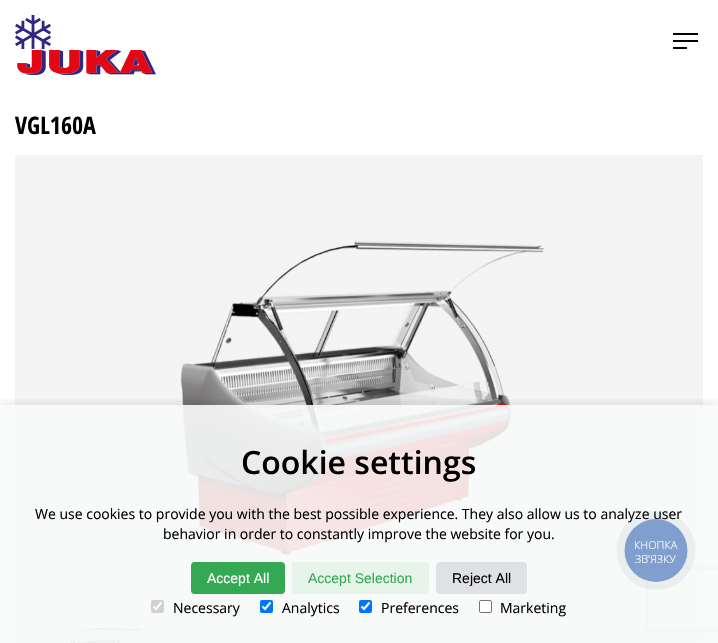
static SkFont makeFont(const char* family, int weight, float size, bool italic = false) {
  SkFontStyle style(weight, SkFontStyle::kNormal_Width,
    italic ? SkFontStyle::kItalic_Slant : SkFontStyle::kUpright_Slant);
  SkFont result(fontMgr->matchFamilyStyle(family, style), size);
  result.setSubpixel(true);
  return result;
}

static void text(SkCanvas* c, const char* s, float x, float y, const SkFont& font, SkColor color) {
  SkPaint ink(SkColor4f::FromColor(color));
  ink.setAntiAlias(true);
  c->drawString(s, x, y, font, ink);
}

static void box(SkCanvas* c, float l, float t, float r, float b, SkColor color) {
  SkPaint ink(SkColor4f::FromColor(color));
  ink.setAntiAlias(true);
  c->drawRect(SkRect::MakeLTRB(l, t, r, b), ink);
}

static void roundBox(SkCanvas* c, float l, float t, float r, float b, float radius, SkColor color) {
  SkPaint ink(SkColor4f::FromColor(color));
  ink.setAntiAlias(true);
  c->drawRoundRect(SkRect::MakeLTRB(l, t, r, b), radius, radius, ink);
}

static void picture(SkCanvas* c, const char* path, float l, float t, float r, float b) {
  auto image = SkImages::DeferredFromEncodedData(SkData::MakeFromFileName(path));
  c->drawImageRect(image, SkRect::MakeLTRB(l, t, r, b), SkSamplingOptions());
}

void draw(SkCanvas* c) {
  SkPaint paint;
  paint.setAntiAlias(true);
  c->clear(0xffffffff);
  picture(c, "img_01.png", 15, 15, 156, 75);
  box(c, 673, 33, 698, 35, 0xff000000);
  box(c, 673, 40, 698, 42, 0xff000000);
  box(c, 673, 47, 687, 49, 0xff000000);
  SkFont face1 = makeFont("Open Sans Condensed", 700, 24);
  text(c, "VGL160A", 15, 134, face1, 0xff000000);
  box(c, 15, 155, 703, 643, 0xfff4f4f4);
  picture(c, "img_02.png", 180, 240, 544, 556);
  box(c, 30, 628, 162, 643, 0xffececec);
  picture(c, "img_03.png", 67, 628, 142, 643);
  c->save();
  c->clipRect(SkRect::MakeLTRB(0, 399, 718, 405));
  paint.setColor(0x1a000000);
  paint.setMaskFilter(SkMaskFilter::MakeBlur(kNormal_SkBlurStyle, 5));
  c->drawRect(SkRect::MakeLTRB(0, 403, 718, 641), paint);
  paint.setMaskFilter(nullptr);
  c->restore();
  c->save();
  c->clipPath(SkPathBuilder(SkPathFillType::kEvenOdd).moveTo(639, 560).lineTo(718, 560).lineTo(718, 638).lineTo(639, 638).close().moveTo(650, 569).lineTo(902, 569).cubicTo(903, 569, 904, 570, 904, 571).lineTo(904, 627).cubicTo(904, 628, 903, 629, 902, 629).lineTo(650, 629).cubicTo(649, 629, 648, 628, 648, 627).lineTo(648, 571).cubicTo(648, 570, 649, 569, 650, 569).close().detach(), true);
  paint.setColor(0xff808080);
  paint.setMaskFilter(SkMaskFilter::MakeBlur(kNormal_SkBlurStyle, 2.5f));
  c->drawRoundRect(SkRect::MakeLTRB(648, 569, 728, 629), 2, 2, paint);
  paint.setMaskFilter(nullptr);
  c->restore();
  box(c, 0, 405, 718, 643, 0xe6f8f9fa);
  SkFont face2 = makeFont("Open Sans", 600, 32);
  text(c, "Cookie settings", 241, 474, face2, 0xff000000);
  SkFont face3 = makeFont("Open Sans", 400, 14);
  text(c, "We use cookies to provide you with the best possible experience. They also allow us to analyze user", 35, 519, face3, 0xff000000);
  text(c, "behavior in order to constantly improve the website for you.", 163, 539, face3, 0xff000000);
  roundBox(c, 191, 562, 285, 594, 4, 0xff34a853);
  SkFont face4 = makeFont("Liberation Sans", 400, 14);
  text(c, "Accept All", 207, 583, face4, 0xffffffff);
  roundBox(c, 292, 562, 429, 594, 4, 0xffe6f4ea);
  text(c, "Accept Selection", 308, 583, face4, 0xff34a853);
  roundBox(c, 436, 562, 527, 594, 4, 0xffdfe1e5);
  text(c, "Reject All", 452, 583, face4, 0xff000000);
  roundBox(c, 151, 600, 164, 613, 2, 0xffd1d1d2);
  paint.setStyle(SkPaint::kStroke_Style);
  paint.setStrokeWidth(2.1f);
  paint.setColor(0xffffffff);
  c->drawPath(SkPathBuilder().moveTo(153.5f, 606.5f).lineTo(156, 609).lineTo(161.5f, 602.5f).detach(), paint);
  text(c, "Necessary", 173, 613, face3, 0xff000000);
  roundBox(c, 260, 600, 273, 613, 2, 0xff0075ff);
  c->drawPath(SkPathBuilder().moveTo(262.5f, 606.5f).lineTo(265, 609).lineTo(270.5f, 602.5f).detach(), paint);
  text(c, "Analytics", 282, 613, face3, 0xff000000);
  roundBox(c, 359, 600, 372, 613, 2, 0xff0075ff);
  c->drawPath(SkPathBuilder().moveTo(361.5f, 606.5f).lineTo(364, 609).lineTo(369.5f, 602.5f).detach(), paint);
  text(c, "Preferences", 381, 613, face3, 0xff000000);
  paint.setStyle(SkPaint::kFill_Style);
  c->drawRoundRect(SkRect::MakeLTRB(479.5f, 600.5f, 491.5f, 612.5f), 1.5f, 1.5f, paint);
  paint.setStyle(SkPaint::kStroke_Style);
  paint.setStrokeWidth(1);
  paint.setColor(0xff767676);
  c->drawRoundRect(SkRect::MakeLTRB(479.5f, 600.5f, 491.5f, 612.5f), 1.5f, 1.5f, paint);
  text(c, "Marketing", 500, 613, face3, 0xff000000);
  paint.setStyle(SkPaint::kFill_Style);
  paint.setColor(0x0f2a405d);
  c->drawCircle(656, 550.5f, 39.5f, paint);
  paint.setColor(0xff809fcf);
  c->drawCircle(656, 550.5f, 31.5f, paint);
  SkFont face5 = makeFont("Open Sans", 300, 11);
  text(c, "КНОПКА", 634, 549, face5, 0xffffffff);
  text(c, "ЗВ'ЯЗКУ", 635, 563, face5, 0xffffffff);
}
